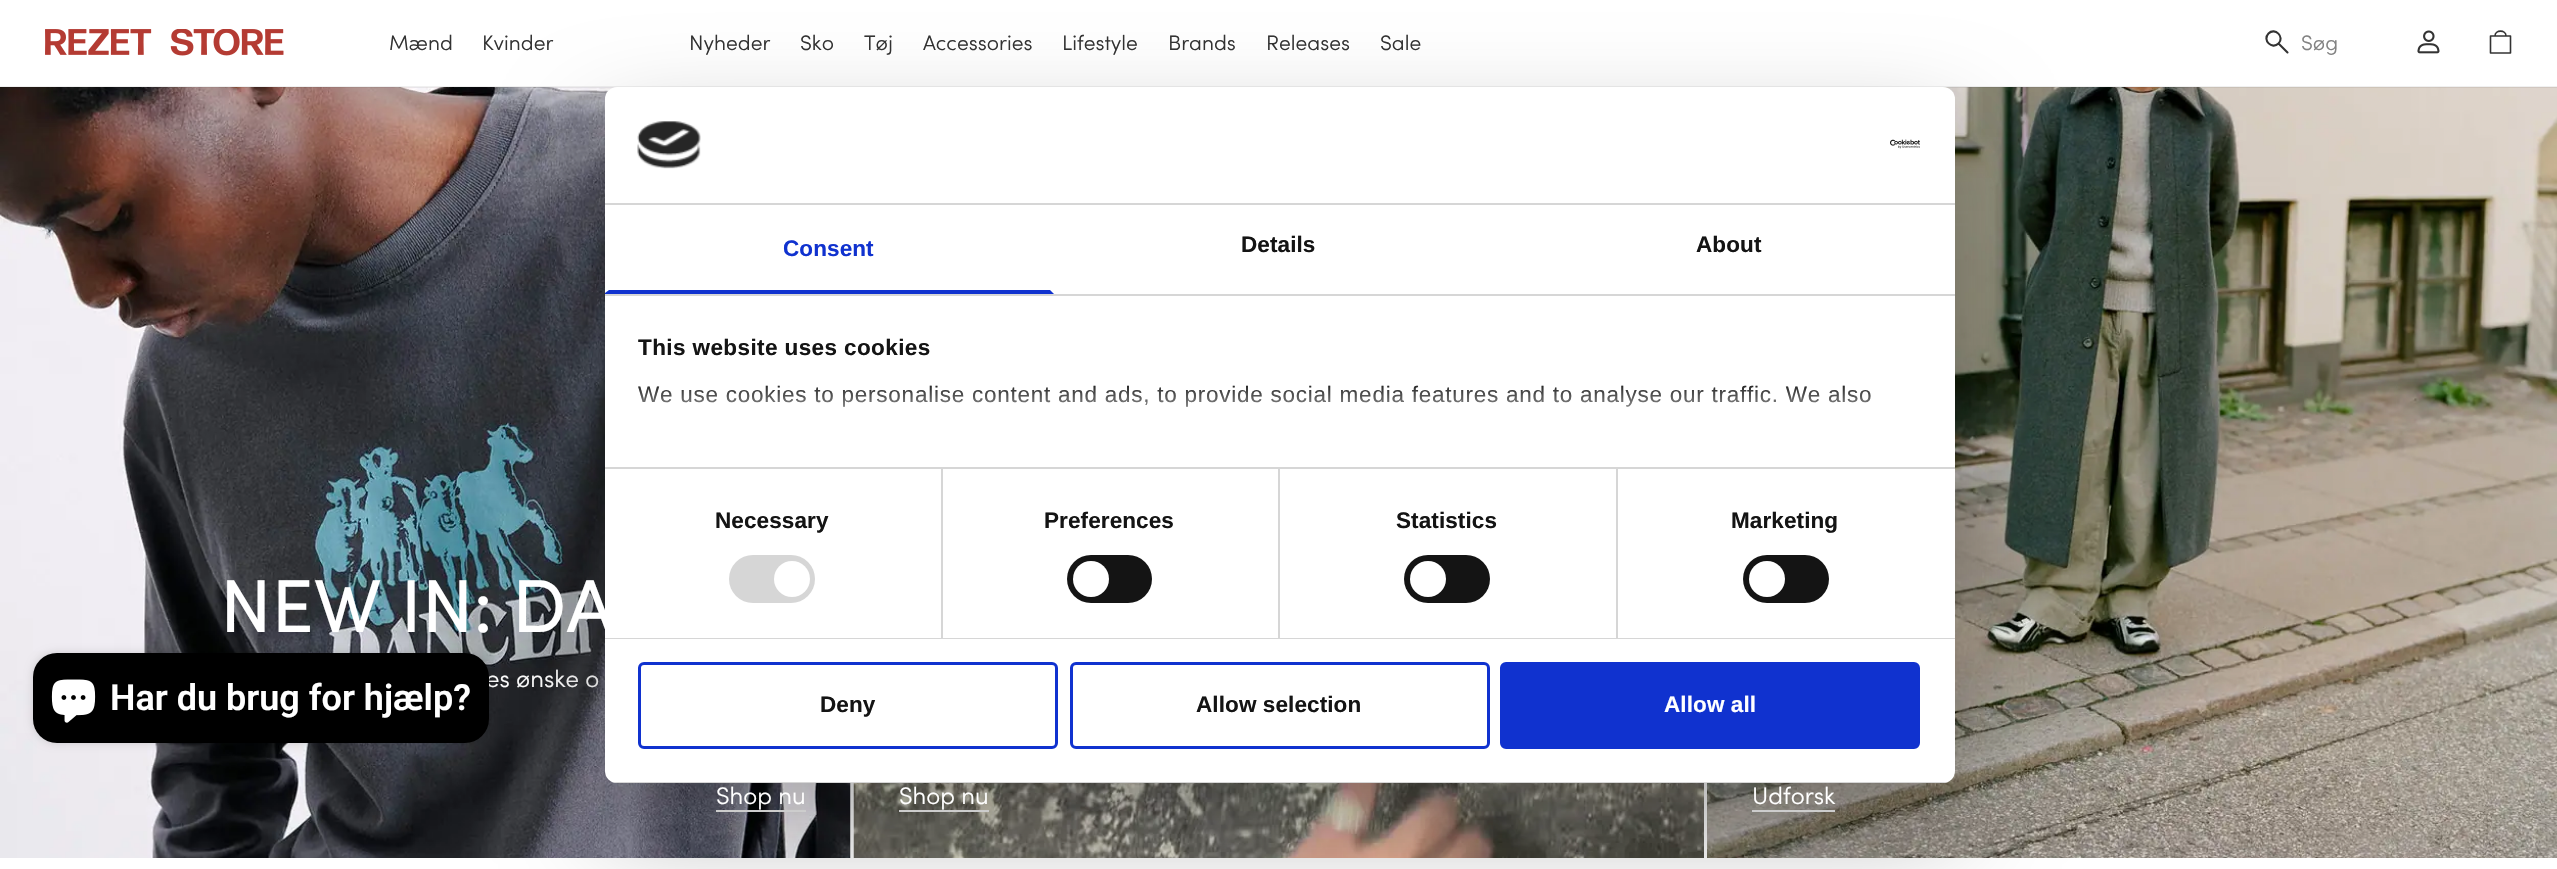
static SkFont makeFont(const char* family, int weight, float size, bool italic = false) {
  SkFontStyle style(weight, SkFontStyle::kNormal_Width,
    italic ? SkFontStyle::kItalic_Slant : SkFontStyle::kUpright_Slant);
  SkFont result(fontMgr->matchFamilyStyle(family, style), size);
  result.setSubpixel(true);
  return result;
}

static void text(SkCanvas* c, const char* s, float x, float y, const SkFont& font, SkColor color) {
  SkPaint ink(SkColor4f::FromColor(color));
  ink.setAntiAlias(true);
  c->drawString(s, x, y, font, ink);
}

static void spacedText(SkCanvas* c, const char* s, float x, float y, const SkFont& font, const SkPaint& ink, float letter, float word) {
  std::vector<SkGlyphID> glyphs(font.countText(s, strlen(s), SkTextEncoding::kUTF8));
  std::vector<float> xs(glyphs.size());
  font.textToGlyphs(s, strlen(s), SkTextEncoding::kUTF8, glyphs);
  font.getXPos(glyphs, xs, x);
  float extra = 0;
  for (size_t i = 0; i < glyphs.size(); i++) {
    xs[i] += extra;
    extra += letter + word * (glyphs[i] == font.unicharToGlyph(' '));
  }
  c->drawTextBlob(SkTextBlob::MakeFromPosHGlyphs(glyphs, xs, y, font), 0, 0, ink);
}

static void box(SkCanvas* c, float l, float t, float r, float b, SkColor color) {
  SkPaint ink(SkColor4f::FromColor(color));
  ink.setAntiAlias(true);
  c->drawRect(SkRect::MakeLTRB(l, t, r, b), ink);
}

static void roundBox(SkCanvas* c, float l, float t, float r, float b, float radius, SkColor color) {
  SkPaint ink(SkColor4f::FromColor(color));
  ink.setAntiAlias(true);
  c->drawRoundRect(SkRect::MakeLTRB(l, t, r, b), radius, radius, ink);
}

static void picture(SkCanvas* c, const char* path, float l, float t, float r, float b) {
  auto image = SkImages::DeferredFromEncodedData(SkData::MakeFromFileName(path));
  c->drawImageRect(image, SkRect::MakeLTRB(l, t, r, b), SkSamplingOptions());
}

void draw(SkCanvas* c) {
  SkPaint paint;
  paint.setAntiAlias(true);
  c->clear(0xffffffff);
  picture(c, "img_05.png", 0, 87, 851, 858);
  picture(c, "img_07.png", 1707, 87, 2557, 858);
  box(c, 0, 86, 2557, 88, 0x0f000000);
  picture(c, "img_01.png", 45, 29, 284, 56);
  SkFont face1 = makeFont("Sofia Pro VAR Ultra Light", 300, 21);
  text(c, "Mænd", 389, 50, face1, 0xff333333);
  text(c, "Kvinder", 482, 50, face1, 0xff333333);
  text(c, "Nyheder", 689, 50, face1, 0xff333333);
  text(c, "Sko", 800, 50, face1, 0xff333333);
  text(c, "Tøj", 864, 50, face1, 0xff333333);
  text(c, "Accessories", 923, 50, face1, 0xff333333);
  text(c, "Lifestyle", 1062, 50, face1, 0xff333333);
  text(c, "Brands", 1168, 50, face1, 0xff333333);
  text(c, "Releases", 1266, 50, face1, 0xff333333);
  text(c, "Sale", 1380, 50, face1, 0xff333333);
  paint.setStyle(SkPaint::kStroke_Style);
  paint.setStrokeWidth(2.1f);
  paint.setStrokeCap(SkPaint::kRound_Cap);
  paint.setStrokeJoin(SkPaint::kRound_Join);
  paint.setColor(0xff333333);
  c->drawPath(SkPathBuilder().moveTo(2278.5f, 43.5f).cubicTo(2272, 50, 2262, 40, 2268.5f, 33.5f).cubicTo(2275, 27, 2285, 37, 2278.5f, 43.5f).close().moveTo(2278.5f, 43.5f).lineTo(2287.5f, 52.5f).detach(), paint);
  text(c, "Søg", 2301, 50, face1, 0xff828282);
  picture(c, "img_02.png", 2417, 30, 2440, 54);
  paint.setStrokeWidth(1.6f);
  paint.setStrokeCap(SkPaint::kSquare_Cap);
  c->drawPath(SkPathBuilder().moveTo(2495, 36).cubicTo(2495, 29.5f, 2506, 29.5f, 2506, 36).moveTo(2490.5f, 36).lineTo(2490.5f, 53).lineTo(2510.5f, 53).lineTo(2510.5f, 36).close().detach(), paint);
  box(c, 716, 810, 806, 812, 0xffffffff);
  picture(c, "img_06.png", 853, 783, 1704, 858);
  box(c, 899, 810, 989, 812, 0xffffffff);
  box(c, 1752, 810, 1835, 812, 0xffffffff);
  SkFont face2 = makeFont("Sofia Pro VAR Ultra Light", 300, 24);
  text(c, "es ønske o", 486, 687, face2, 0xffffffff);
  paint.setStyle(SkPaint::kFill_Style);
  paint.setColor(0x26000000);
  paint.setMaskFilter(SkMaskFilter::MakeBlur(kNormal_SkBlurStyle, 4));
  c->drawRoundRect(SkRect::MakeLTRB(33, 653, 489, 743), 24, 24, paint);
  paint.setMaskFilter(nullptr);
  roundBox(c, 33, 653, 489, 743, 24, 0xff000000);
  paint.setColor(0x4d000000);
  paint.setMaskFilter(SkMaskFilter::MakeBlur(kNormal_SkBlurStyle, 51));
  c->drawRoundRect(SkRect::MakeLTRB(605, 135, 1955, 831), 12, 12, paint);
  paint.setMaskFilter(nullptr);
  roundBox(c, 605, 87, 1955, 783, 12, 0xffffffff);
  box(c, 605, 203, 1955, 205, 0xffd6d6d6);
  picture(c, "img_03.png", 637, 121, 701, 169);
  picture(c, "img_04.png", 1890, 139, 1920, 149);
  box(c, 605, 294, 1955, 296, 0xffd6d6d6);
  paint.setColor(0xff1032cf);
  c->drawPath(SkPathBuilder().moveTo(1054, 294).lineTo(605, 294).lineTo(605, 293).lineTo(609, 290).lineTo(1050, 290).close().detach(), paint);
  SkFont face3 = makeFont("Liberation Sans", 700, 22.5f);
  spacedText(c, "Consent", 783, 256, face3, paint, 0.1f, 0);
  paint.setColor(0xff141414);
  spacedText(c, "Details", 1241, 252, face3, paint, 0.1f, 0);
  spacedText(c, "About", 1696, 252, face3, paint, 0.1f, 0);
  box(c, 941, 468, 943, 638, 0xffd6d6d6);
  box(c, 1278, 468, 1280, 638, 0xffd6d6d6);
  box(c, 1616, 468, 1618, 638, 0xffd6d6d6);
  box(c, 605, 467, 1955, 469, 0xffd6d6d6);
  spacedText(c, "This website uses cookies", 638, 355, face3, paint, 0.4f, 0);
  SkFont face4 = makeFont("Liberation Sans", 400, 22.5f);
  spacedText(c, "We use cookies to personalise content and ads, to provide social media features and to analyse our traffic. We also", 638, 402, face4, paint, 0.75f, 0);
  {
    const SkColor colors[] = {0xffffffff, 0xccffffff, 0x00ffffff};
    const float stops[] = {0, 0.5f, 1};
    const SkPoint ends[] = {{1264, 467}, {1264, 381}};
    paint.setShader(SkGradientShader::MakeLinear(ends, colors, stops, 3, SkTileMode::kClamp));
    paint.setAlpha(255);
  }
  c->drawRect(SkRect::MakeLTRB(637, 385, 1871, 407), paint);
  box(c, 605, 638, 1955, 639, 0xffd6d6d6);
  paint.setShader(nullptr);
  paint.setColor(0xff141414);
  spacedText(c, "Necessary", 715, 528, face3, paint, 0.1f, 0);
  roundBox(c, 729, 555, 815, 603, 24, 0xffd6d6d6);
  paint.setColor(0xffffffff);
  c->drawCircle(792, 579, 18, paint);
  paint.setColor(0xff141414);
  spacedText(c, "Preferences", 1044, 528, face3, paint, 0.1f, 0);
  roundBox(c, 1067, 555, 1152, 603, 24, 0xff141414);
  paint.setColor(0xffffffff);
  c->drawCircle(1091, 579, 18, paint);
  paint.setColor(0xff141414);
  spacedText(c, "Statistics", 1396, 528, face3, paint, 0.1f, 0);
  roundBox(c, 1404, 555, 1490, 603, 24, 0xff141414);
  paint.setColor(0xffffffff);
  c->drawCircle(1428, 579, 18, paint);
  paint.setColor(0xff141414);
  spacedText(c, "Marketing", 1731, 528, face3, paint, 0.1f, 0);
  roundBox(c, 1743, 555, 1829, 603, 24, 0xff141414);
  paint.setColor(0xffffffff);
  c->drawCircle(1767, 579, 18, paint);
  c->save();
  c->clipPath(SkPathBuilder().moveTo(617, 87).lineTo(1943, 87).cubicTo(1949.5f, 87, 1955, 92.5f, 1955, 99).lineTo(1955, 771).cubicTo(1955, 777.5f, 1949.5f, 783, 1943, 783).lineTo(617, 783).cubicTo(610.5f, 783, 605, 777.5f, 605, 771).lineTo(605, 99).cubicTo(605, 92.5f, 610.5f, 87, 617, 87).close().detach(), true);
  box(c, 605, 782, 1955, 783, 0xffd6d6d6);
  c->restore();
  paint.setStyle(SkPaint::kStroke_Style);
  paint.setStrokeWidth(3);
  paint.setStrokeCap(SkPaint::kButt_Cap);
  paint.setStrokeJoin(SkPaint::kMiter_Join);
  paint.setColor(0xff1032cf);
  c->drawRoundRect(SkRect::MakeLTRB(639.5f, 663.5f, 1056.5f, 747.5f), 4.5f, 4.5f, paint);
  paint.setStyle(SkPaint::kFill_Style);
  paint.setColor(0xff141414);
  spacedText(c, "Deny", 820, 712, face3, paint, 0.1f, 0);
  paint.setStyle(SkPaint::kStroke_Style);
  paint.setColor(0xff1032cf);
  c->drawRoundRect(SkRect::MakeLTRB(1071.5f, 663.5f, 1488.5f, 747.5f), 4.5f, 4.5f, paint);
  paint.setStyle(SkPaint::kFill_Style);
  paint.setColor(0xff141414);
  spacedText(c, "Allow selection", 1196, 712, face3, paint, 0.1f, 0);
  paint.setColor(0xff1032cf);
  c->drawRoundRect(SkRect::MakeLTRB(1501.5f, 663.5f, 1918.5f, 747.5f), 4.5f, 4.5f, paint);
  paint.setStyle(SkPaint::kStroke_Style);
  c->drawRoundRect(SkRect::MakeLTRB(1501.5f, 663.5f, 1918.5f, 747.5f), 4.5f, 4.5f, paint);
  paint.setStyle(SkPaint::kFill_Style);
  paint.setColor(0xffffffff);
  spacedText(c, "Allow all", 1664, 712, face3, paint, 0.1f, 0);
  SkFont face5 = makeFont("Sofia Pro VAR Ultra Light", 400, 75);
  text(c, "NEW IN: DA", 220, 632, face5, 0xffffffff);
  text(c, "Shop nu", 716, 804, face2, 0xffffffff);
  text(c, "Shop nu", 899, 804, face2, 0xffffffff);
  text(c, "Udforsk", 1752, 804, face2, 0xffffffff);
  picture(c, "img_08.png", 51, 679, 96, 723);
  SkFont face6 = makeFont("Roboto", 600, 36);
  text(c, "Har du brug for hjælp?", 110, 710, face6, 0xffffffff);
}
